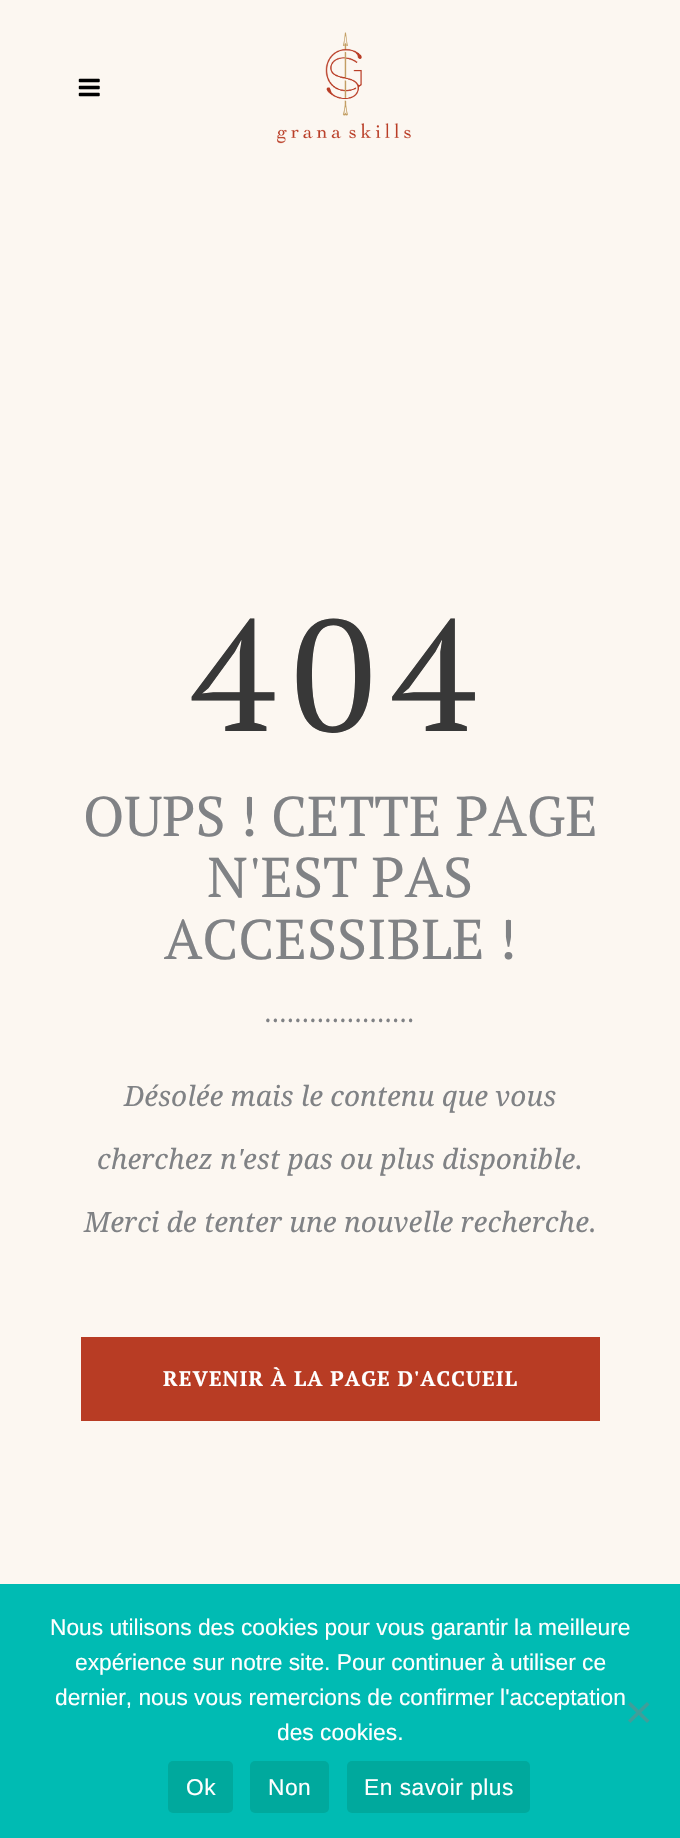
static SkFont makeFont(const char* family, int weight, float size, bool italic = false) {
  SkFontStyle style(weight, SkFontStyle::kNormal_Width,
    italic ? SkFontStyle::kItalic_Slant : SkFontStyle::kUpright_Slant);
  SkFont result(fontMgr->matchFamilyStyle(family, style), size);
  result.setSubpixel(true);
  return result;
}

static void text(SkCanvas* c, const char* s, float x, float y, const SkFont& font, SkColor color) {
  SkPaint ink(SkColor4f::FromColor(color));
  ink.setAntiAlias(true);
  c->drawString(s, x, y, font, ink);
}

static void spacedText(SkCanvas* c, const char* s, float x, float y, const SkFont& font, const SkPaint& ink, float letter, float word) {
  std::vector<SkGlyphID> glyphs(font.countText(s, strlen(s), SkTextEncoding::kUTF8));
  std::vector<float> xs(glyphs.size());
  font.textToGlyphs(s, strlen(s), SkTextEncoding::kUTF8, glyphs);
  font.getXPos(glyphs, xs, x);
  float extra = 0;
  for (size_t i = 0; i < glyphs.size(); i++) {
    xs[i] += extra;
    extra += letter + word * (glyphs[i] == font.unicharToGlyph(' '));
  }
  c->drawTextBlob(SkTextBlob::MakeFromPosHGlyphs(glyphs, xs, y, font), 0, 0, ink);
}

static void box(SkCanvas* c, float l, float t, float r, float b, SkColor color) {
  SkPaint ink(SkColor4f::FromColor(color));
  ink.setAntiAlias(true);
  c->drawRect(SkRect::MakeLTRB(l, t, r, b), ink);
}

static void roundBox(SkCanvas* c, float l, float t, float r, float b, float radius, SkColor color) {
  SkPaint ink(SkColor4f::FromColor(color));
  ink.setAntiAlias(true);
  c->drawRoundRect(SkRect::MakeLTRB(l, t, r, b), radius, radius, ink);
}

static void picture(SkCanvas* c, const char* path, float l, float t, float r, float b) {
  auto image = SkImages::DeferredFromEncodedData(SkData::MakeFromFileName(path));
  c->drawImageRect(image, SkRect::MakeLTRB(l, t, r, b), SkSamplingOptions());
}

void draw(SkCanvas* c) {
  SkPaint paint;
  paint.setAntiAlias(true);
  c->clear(0xfffcf7f1);
  picture(c, "img_01.png", 78, 78, 100, 97);
  picture(c, "img_02.png", 277, 32, 411, 144);
  SkFont face1 = makeFont("PT Serif", 400, 158);
  paint.setColor(0xff383838);
  spacedText(c, "404", 191, 731, face1, paint, 16, 0);
  SkFont face2 = makeFont("PT Serif", 400, 56);
  text(c, "OUPS ! CETTE PAGE", 83, 836, face2, 0xff808285);
  text(c, "N'EST PAS", 207, 897, face2, 0xff808285);
  text(c, "ACCESSIBLE !", 164, 959, face2, 0xff808285);
  SkFont face3 = makeFont("Droid Serif", 400, 26.25f, true);
  text(c, "....................", 265, 1022, face3, 0xff808285);
  SkFont face4 = makeFont("Droid Serif", 400, 28, true);
  text(c, "Désolée mais le contenu que vous", 124, 1106, face4, 0xff808285);
  text(c, "cherchez n'est pas ou plus disponible.", 97, 1169, face4, 0xff808285);
  text(c, "Merci de tenter une nouvelle recherche.", 84, 1232, face4, 0xff808285);
  box(c, 81, 1337, 600, 1421, 0xffb83c24);
  SkFont face5 = makeFont("PT Serif", 700, 21);
  paint.setColor(0xffffffff);
  spacedText(c, "REVENIR À LA PAGE D'ACCUEIL", 163, 1386, face5, paint, 1.05f, 0);
  box(c, 0, 1584, 680, 1838, 0xff00bbb3);
  SkFont face6 = makeFont("Liberation Sans", 400, 22.75f);
  text(c, "Nous utilisons des cookies pour vous garantir la meilleure", 50, 1635, face6, 0xffffffff);
  text(c, "expérience sur notre site. Pour continuer à utiliser ce", 75, 1670, face6, 0xffffffff);
  text(c, "dernier, nous vous remercions de confirmer l'acceptation", 55, 1705, face6, 0xffffffff);
  text(c, "des cookies.", 277, 1740, face6, 0xffffffff);
  paint.setColor(0xff409e9a);
  c->drawPath(SkPathBuilder().moveTo(647, 1702).lineTo(649.5f, 1704.5f).lineTo(630.5f, 1723).lineTo(628, 1720.5f).close().detach(), paint);
  c->drawPath(SkPathBuilder().moveTo(628, 1704.5f).lineTo(630.5f, 1702).lineTo(649.5f, 1720.5f).lineTo(647, 1723).close().detach(), paint);
  roundBox(c, 168, 1761, 233, 1813, 5, 0xff00a99d);
  paint.setColor(0xffffffff);
  spacedText(c, "Ok", 186, 1795, face6, paint, 0.5f, 0);
  roundBox(c, 250, 1761, 329, 1813, 5, 0xff00a99d);
  spacedText(c, "Non", 268, 1795, face6, paint, 0.5f, 0);
  roundBox(c, 347, 1761, 530, 1813, 5, 0xff00a99d);
  spacedText(c, "En savoir plus", 364, 1795, face6, paint, 0.5f, 0);
}
